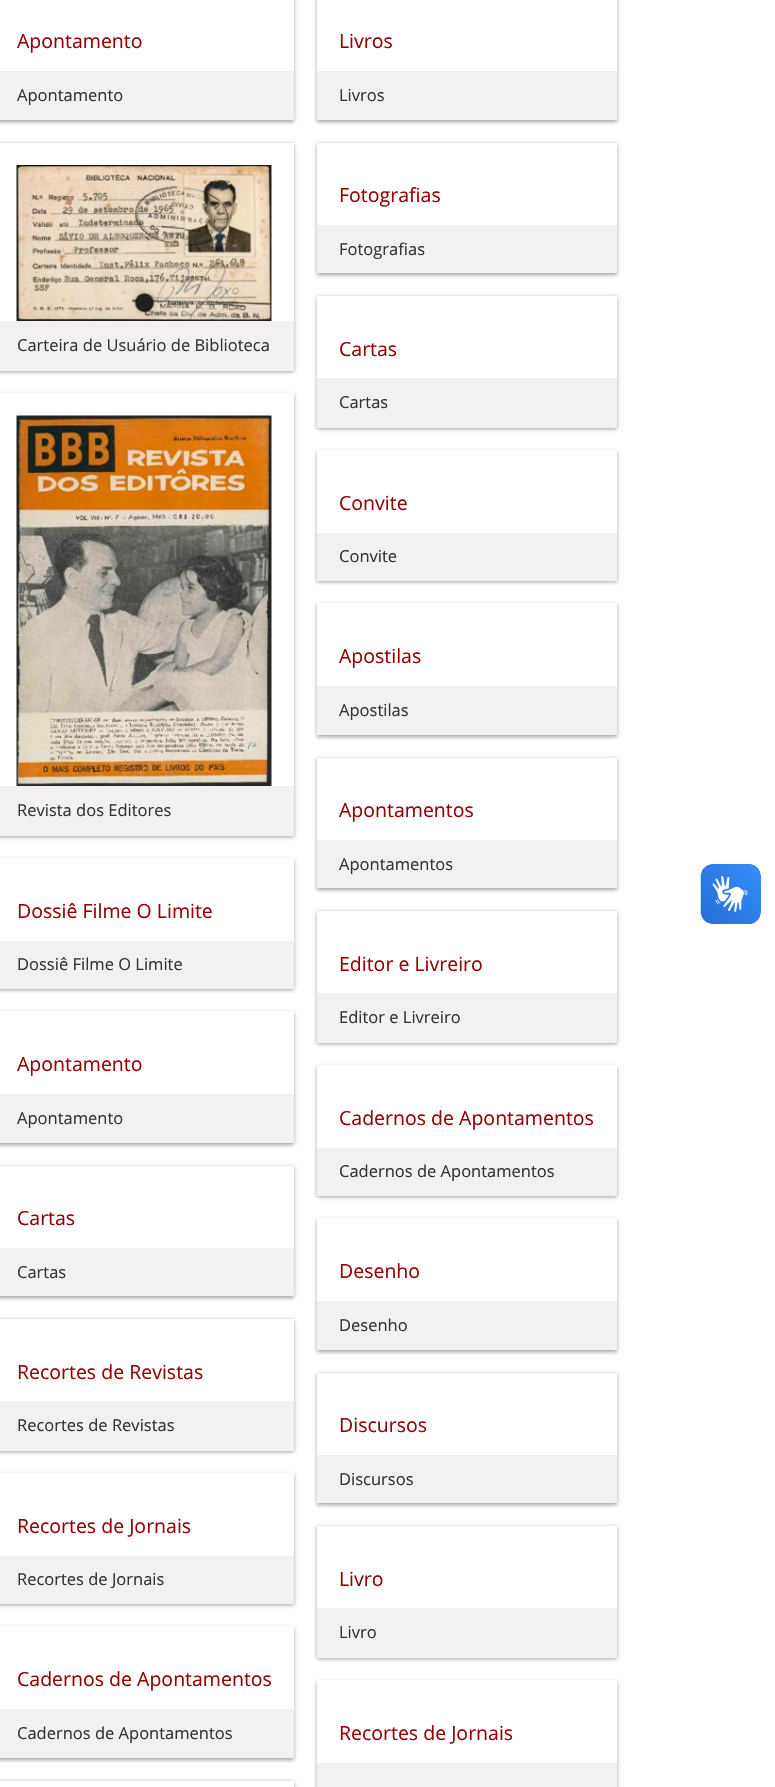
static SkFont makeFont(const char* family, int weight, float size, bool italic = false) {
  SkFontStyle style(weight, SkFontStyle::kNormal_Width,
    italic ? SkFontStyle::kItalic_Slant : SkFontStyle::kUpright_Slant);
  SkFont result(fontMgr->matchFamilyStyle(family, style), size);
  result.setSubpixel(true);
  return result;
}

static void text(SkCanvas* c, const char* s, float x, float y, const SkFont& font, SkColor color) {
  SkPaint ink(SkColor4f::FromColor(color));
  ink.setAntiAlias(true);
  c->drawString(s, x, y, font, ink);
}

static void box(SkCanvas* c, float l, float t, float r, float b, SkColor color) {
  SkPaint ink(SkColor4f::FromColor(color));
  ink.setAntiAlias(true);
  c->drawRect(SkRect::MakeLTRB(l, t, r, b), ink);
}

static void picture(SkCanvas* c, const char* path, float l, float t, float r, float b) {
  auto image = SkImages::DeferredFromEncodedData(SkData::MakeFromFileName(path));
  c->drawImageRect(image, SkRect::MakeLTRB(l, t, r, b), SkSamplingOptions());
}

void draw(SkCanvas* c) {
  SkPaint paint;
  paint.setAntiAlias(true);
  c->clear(0xffffffff);
  c->save();
  c->clipPath(SkPathBuilder(SkPathFillType::kEvenOdd).moveTo(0, 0).lineTo(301, 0).lineTo(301, 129).lineTo(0, 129).close().moveTo(-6, -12).lineTo(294, -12).lineTo(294, 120).lineTo(-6, 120).close().detach(), true);
  paint.setColor(0x66191919);
  paint.setMaskFilter(SkMaskFilter::MakeBlur(kNormal_SkBlurStyle, 2));
  c->drawRect(SkRect::MakeLTRB(-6, -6, 294, 122), paint);
  paint.setMaskFilter(nullptr);
  c->restore();
  SkFont face1 = makeFont("Open Sans", 400, 19.5f);
  text(c, "Apontamento", 17, 48, face1, 0xff950204);
  box(c, 0, 71, 294, 120, 0xfff2f0f0);
  SkFont face2 = makeFont("Open Sans", 400, 16.5f);
  text(c, "Apontamento", 17, 101, face2, 0xff333333);
  paint.setMaskFilter(SkMaskFilter::MakeBlur(kNormal_SkBlurStyle, 2));
  c->drawRect(SkRect::MakeLTRB(317, -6, 617, 122), paint);
  paint.setMaskFilter(nullptr);
  box(c, 317, 0, 617, 71, 0xffffffff);
  text(c, "Livros", 339, 48, face1, 0xff950204);
  box(c, 317, 71, 617, 120, 0xfff2f0f0);
  text(c, "Livros", 339, 101, face2, 0xff333333);
  paint.setMaskFilter(SkMaskFilter::MakeBlur(kNormal_SkBlurStyle, 2));
  c->drawRect(SkRect::MakeLTRB(317, 144, 617, 275), paint);
  paint.setMaskFilter(nullptr);
  box(c, 317, 143, 617, 225, 0xffffffff);
  text(c, "Fotografias", 339, 202, face1, 0xff950204);
  box(c, 317, 225, 617, 273, 0xfff2f0f0);
  text(c, "Fotografias", 339, 255, face2, 0xff333333);
  paint.setMaskFilter(SkMaskFilter::MakeBlur(kNormal_SkBlurStyle, 2));
  c->drawRect(SkRect::MakeLTRB(-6, 144, 294, 372), paint);
  paint.setMaskFilter(nullptr);
  box(c, 0, 143, 294, 321, 0xffffffff);
  picture(c, "img_01.png", 16, 165, 272, 321);
  box(c, 0, 321, 294, 371, 0xfff2f0f0);
  text(c, "Carteira de Usuário de Biblioteca", 17, 351, face2, 0xff333333);
  paint.setMaskFilter(SkMaskFilter::MakeBlur(kNormal_SkBlurStyle, 2));
  c->drawRect(SkRect::MakeLTRB(317, 297, 617, 429), paint);
  paint.setMaskFilter(nullptr);
  box(c, 317, 296, 617, 378, 0xffffffff);
  text(c, "Cartas", 339, 356, face1, 0xff950204);
  box(c, 317, 378, 617, 428, 0xfff2f0f0);
  text(c, "Cartas", 339, 408, face2, 0xff333333);
  paint.setMaskFilter(SkMaskFilter::MakeBlur(kNormal_SkBlurStyle, 2));
  c->drawRect(SkRect::MakeLTRB(317, 452, 617, 582), paint);
  paint.setMaskFilter(nullptr);
  box(c, 317, 450, 617, 533, 0xffffffff);
  text(c, "Convite", 339, 510, face1, 0xff950204);
  box(c, 317, 533, 617, 581, 0xfff2f0f0);
  text(c, "Convite", 339, 562, face2, 0xff333333);
  paint.setMaskFilter(SkMaskFilter::MakeBlur(kNormal_SkBlurStyle, 2));
  c->drawRect(SkRect::MakeLTRB(317, 605, 617, 737), paint);
  paint.setMaskFilter(nullptr);
  box(c, 317, 603, 617, 686, 0xffffffff);
  text(c, "Apostilas", 339, 663, face1, 0xff950204);
  box(c, 317, 686, 617, 735, 0xfff2f0f0);
  text(c, "Apostilas", 339, 716, face2, 0xff333333);
  paint.setMaskFilter(SkMaskFilter::MakeBlur(kNormal_SkBlurStyle, 2));
  c->drawRect(SkRect::MakeLTRB(-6, 395, 294, 837), paint);
  paint.setMaskFilter(nullptr);
  box(c, 0, 393, 294, 786, 0xffffffff);
  picture(c, "img_02.png", 16, 415, 272, 786);
  box(c, 0, 786, 294, 836, 0xfff2f0f0);
  text(c, "Revista dos Editores", 17, 816, face2, 0xff333333);
  paint.setMaskFilter(SkMaskFilter::MakeBlur(kNormal_SkBlurStyle, 2));
  c->drawRect(SkRect::MakeLTRB(317, 759, 617, 890), paint);
  paint.setMaskFilter(nullptr);
  box(c, 317, 758, 617, 840, 0xffffffff);
  text(c, "Apontamentos", 339, 817, face1, 0xff950204);
  box(c, 317, 840, 617, 888, 0xfff2f0f0);
  text(c, "Apontamentos", 339, 870, face2, 0xff333333);
  paint.setMaskFilter(SkMaskFilter::MakeBlur(kNormal_SkBlurStyle, 2));
  c->drawRect(SkRect::MakeLTRB(-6, 860, 294, 990), paint);
  paint.setMaskFilter(nullptr);
  box(c, 0, 858, 294, 941, 0xffffffff);
  text(c, "Dossiê Filme O Limite", 17, 918, face1, 0xff950204);
  box(c, 0, 941, 294, 989, 0xfff2f0f0);
  text(c, "Dossiê Filme O Limite", 17, 970, face2, 0xff333333);
  paint.setMaskFilter(SkMaskFilter::MakeBlur(kNormal_SkBlurStyle, 2));
  c->drawRect(SkRect::MakeLTRB(317, 912, 617, 1044), paint);
  paint.setMaskFilter(nullptr);
  box(c, 317, 911, 617, 993, 0xffffffff);
  text(c, "Editor e Livreiro", 339, 971, face1, 0xff950204);
  box(c, 317, 993, 617, 1043, 0xfff2f0f0);
  text(c, "Editor e Livreiro", 339, 1023, face2, 0xff333333);
  c->save();
  c->clipPath(SkPathBuilder(SkPathFillType::kEvenOdd).moveTo(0, 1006).lineTo(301, 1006).lineTo(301, 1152).lineTo(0, 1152).close().moveTo(-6, 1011).lineTo(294, 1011).lineTo(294, 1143).lineTo(-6, 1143).close().detach(), true);
  paint.setMaskFilter(SkMaskFilter::MakeBlur(kNormal_SkBlurStyle, 2));
  c->drawRect(SkRect::MakeLTRB(-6, 1013, 294, 1145), paint);
  paint.setMaskFilter(nullptr);
  c->restore();
  text(c, "Apontamento", 17, 1071, face1, 0xff950204);
  box(c, 0, 1094, 294, 1143, 0xfff2f0f0);
  text(c, "Apontamento", 17, 1124, face2, 0xff333333);
  paint.setMaskFilter(SkMaskFilter::MakeBlur(kNormal_SkBlurStyle, 2));
  c->drawRect(SkRect::MakeLTRB(317, 1067, 617, 1197), paint);
  paint.setMaskFilter(nullptr);
  box(c, 317, 1065, 617, 1148, 0xffffffff);
  text(c, "Cadernos de Apontamentos", 339, 1125, face1, 0xff950204);
  box(c, 317, 1148, 617, 1196, 0xfff2f0f0);
  text(c, "Cadernos de Apontamentos", 339, 1177, face2, 0xff333333);
  c->save();
  c->clipPath(SkPathBuilder(SkPathFillType::kEvenOdd).moveTo(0, 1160).lineTo(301, 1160).lineTo(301, 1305).lineTo(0, 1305).close().moveTo(-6, 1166).lineTo(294, 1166).lineTo(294, 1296).lineTo(-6, 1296).close().detach(), true);
  paint.setMaskFilter(SkMaskFilter::MakeBlur(kNormal_SkBlurStyle, 2));
  c->drawRect(SkRect::MakeLTRB(-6, 1167, 294, 1298), paint);
  paint.setMaskFilter(nullptr);
  c->restore();
  text(c, "Cartas", 17, 1225, face1, 0xff950204);
  box(c, 0, 1248, 294, 1296, 0xfff2f0f0);
  text(c, "Cartas", 17, 1278, face2, 0xff333333);
  paint.setMaskFilter(SkMaskFilter::MakeBlur(kNormal_SkBlurStyle, 2));
  c->drawRect(SkRect::MakeLTRB(317, 1220, 617, 1352), paint);
  paint.setMaskFilter(nullptr);
  box(c, 317, 1218, 617, 1301, 0xffffffff);
  text(c, "Desenho", 339, 1278, face1, 0xff950204);
  box(c, 317, 1301, 617, 1350, 0xfff2f0f0);
  text(c, "Desenho", 339, 1331, face2, 0xff333333);
  paint.setMaskFilter(SkMaskFilter::MakeBlur(kNormal_SkBlurStyle, 2));
  c->drawRect(SkRect::MakeLTRB(-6, 1320, 294, 1452), paint);
  paint.setMaskFilter(nullptr);
  box(c, 0, 1319, 294, 1401, 0xffffffff);
  text(c, "Recortes de Revistas", 17, 1379, face1, 0xff950204);
  box(c, 0, 1401, 294, 1451, 0xfff2f0f0);
  text(c, "Recortes de Revistas", 17, 1431, face2, 0xff333333);
  paint.setMaskFilter(SkMaskFilter::MakeBlur(kNormal_SkBlurStyle, 2));
  c->drawRect(SkRect::MakeLTRB(317, 1374, 617, 1505), paint);
  paint.setMaskFilter(nullptr);
  box(c, 317, 1373, 617, 1455, 0xffffffff);
  text(c, "Discursos", 339, 1432, face1, 0xff950204);
  box(c, 317, 1455, 617, 1503, 0xfff2f0f0);
  text(c, "Discursos", 339, 1485, face2, 0xff333333);
  paint.setMaskFilter(SkMaskFilter::MakeBlur(kNormal_SkBlurStyle, 2));
  c->drawRect(SkRect::MakeLTRB(-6, 1475, 294, 1605), paint);
  paint.setMaskFilter(nullptr);
  box(c, 0, 1473, 294, 1556, 0xffffffff);
  text(c, "Recortes de Jornais", 17, 1533, face1, 0xff950204);
  box(c, 0, 1556, 294, 1604, 0xfff2f0f0);
  text(c, "Recortes de Jornais", 17, 1585, face2, 0xff333333);
  paint.setMaskFilter(SkMaskFilter::MakeBlur(kNormal_SkBlurStyle, 2));
  c->drawRect(SkRect::MakeLTRB(317, 1527, 617, 1659), paint);
  paint.setMaskFilter(nullptr);
  box(c, 317, 1526, 617, 1608, 0xffffffff);
  text(c, "Livro", 339, 1586, face1, 0xff950204);
  box(c, 317, 1608, 617, 1658, 0xfff2f0f0);
  text(c, "Livro", 339, 1638, face2, 0xff333333);
  c->save();
  c->clipPath(SkPathBuilder(SkPathFillType::kEvenOdd).moveTo(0, 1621).lineTo(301, 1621).lineTo(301, 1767).lineTo(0, 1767).close().moveTo(-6, 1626).lineTo(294, 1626).lineTo(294, 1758).lineTo(-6, 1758).close().detach(), true);
  paint.setMaskFilter(SkMaskFilter::MakeBlur(kNormal_SkBlurStyle, 2));
  c->drawRect(SkRect::MakeLTRB(-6, 1628, 294, 1760), paint);
  paint.setMaskFilter(nullptr);
  c->restore();
  text(c, "Cadernos de Apontamentos", 17, 1686, face1, 0xff950204);
  box(c, 0, 1709, 294, 1758, 0xfff2f0f0);
  text(c, "Cadernos de Apontamentos", 17, 1739, face2, 0xff333333);
  paint.setMaskFilter(SkMaskFilter::MakeBlur(kNormal_SkBlurStyle, 2));
  c->drawRect(SkRect::MakeLTRB(317, 1682, 617, 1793), paint);
  paint.setMaskFilter(nullptr);
  box(c, 317, 1680, 617, 1763, 0xffffffff);
  text(c, "Recortes de Jornais", 339, 1740, face1, 0xff950204);
  box(c, 317, 1763, 617, 1787, 0xfff2f0f0);
  c->save();
  c->clipPath(SkPathBuilder(SkPathFillType::kEvenOdd).moveTo(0, 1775).lineTo(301, 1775).lineTo(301, 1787).lineTo(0, 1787).close().moveTo(-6, 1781).lineTo(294, 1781).lineTo(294, 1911).lineTo(-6, 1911).close().detach(), true);
  paint.setMaskFilter(SkMaskFilter::MakeBlur(kNormal_SkBlurStyle, 2));
  c->drawRect(SkRect::MakeLTRB(-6, 1782, 294, 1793), paint);
  paint.setMaskFilter(nullptr);
  c->restore();
  picture(c, "img_03.png", 700, 864, 761, 924);
  picture(c, "img_04.png", 701, 864, 761, 924);
}
